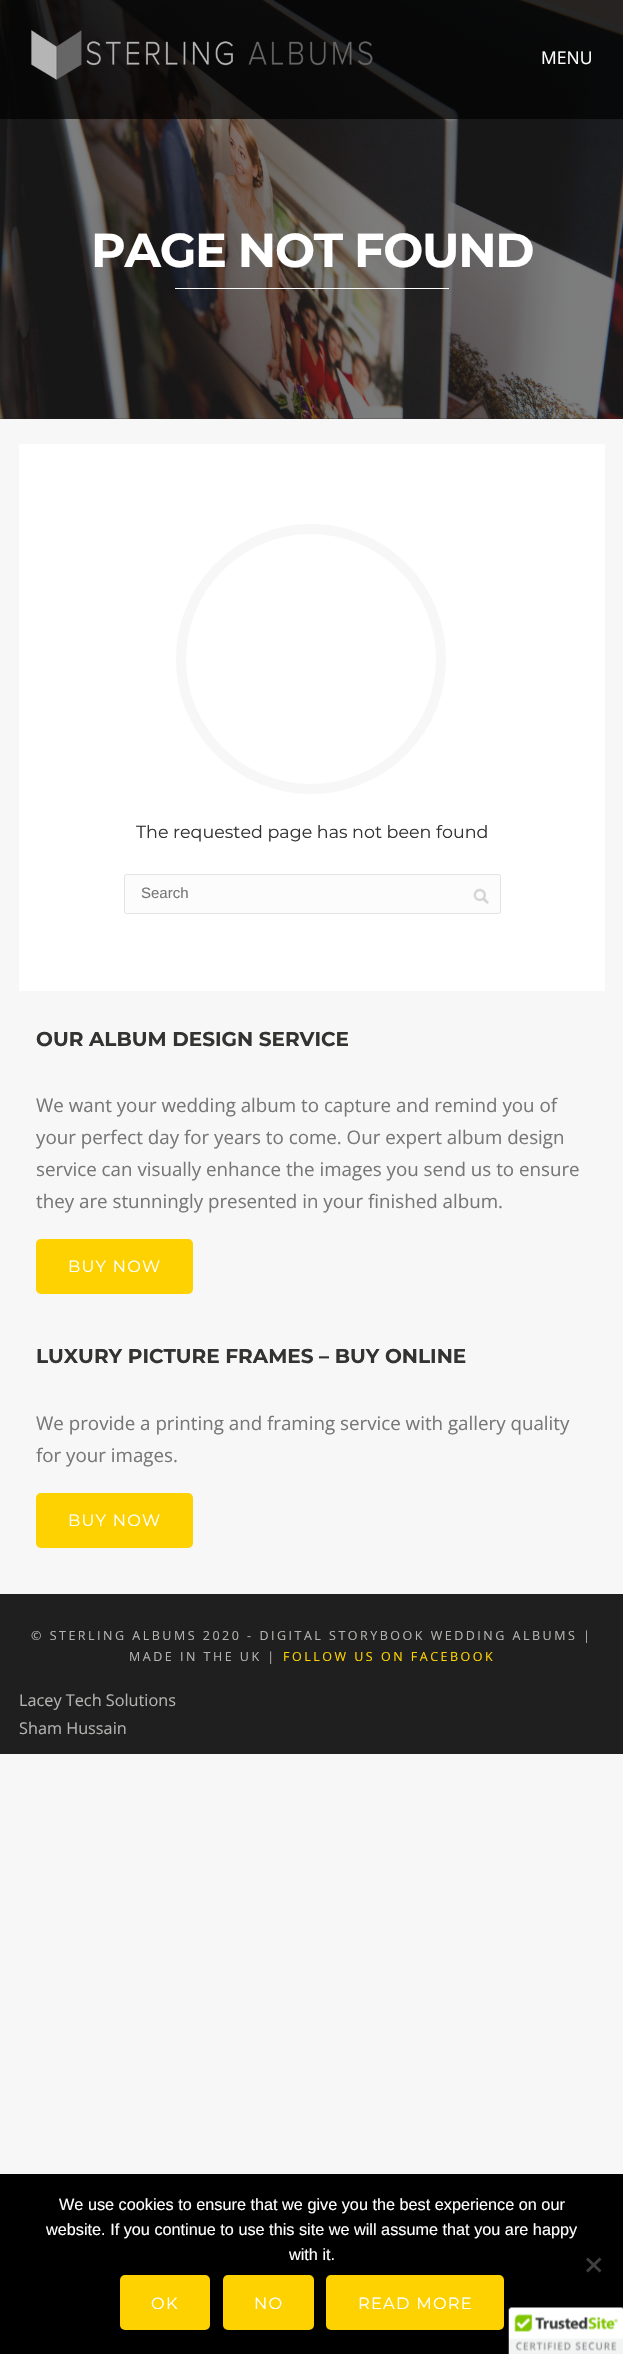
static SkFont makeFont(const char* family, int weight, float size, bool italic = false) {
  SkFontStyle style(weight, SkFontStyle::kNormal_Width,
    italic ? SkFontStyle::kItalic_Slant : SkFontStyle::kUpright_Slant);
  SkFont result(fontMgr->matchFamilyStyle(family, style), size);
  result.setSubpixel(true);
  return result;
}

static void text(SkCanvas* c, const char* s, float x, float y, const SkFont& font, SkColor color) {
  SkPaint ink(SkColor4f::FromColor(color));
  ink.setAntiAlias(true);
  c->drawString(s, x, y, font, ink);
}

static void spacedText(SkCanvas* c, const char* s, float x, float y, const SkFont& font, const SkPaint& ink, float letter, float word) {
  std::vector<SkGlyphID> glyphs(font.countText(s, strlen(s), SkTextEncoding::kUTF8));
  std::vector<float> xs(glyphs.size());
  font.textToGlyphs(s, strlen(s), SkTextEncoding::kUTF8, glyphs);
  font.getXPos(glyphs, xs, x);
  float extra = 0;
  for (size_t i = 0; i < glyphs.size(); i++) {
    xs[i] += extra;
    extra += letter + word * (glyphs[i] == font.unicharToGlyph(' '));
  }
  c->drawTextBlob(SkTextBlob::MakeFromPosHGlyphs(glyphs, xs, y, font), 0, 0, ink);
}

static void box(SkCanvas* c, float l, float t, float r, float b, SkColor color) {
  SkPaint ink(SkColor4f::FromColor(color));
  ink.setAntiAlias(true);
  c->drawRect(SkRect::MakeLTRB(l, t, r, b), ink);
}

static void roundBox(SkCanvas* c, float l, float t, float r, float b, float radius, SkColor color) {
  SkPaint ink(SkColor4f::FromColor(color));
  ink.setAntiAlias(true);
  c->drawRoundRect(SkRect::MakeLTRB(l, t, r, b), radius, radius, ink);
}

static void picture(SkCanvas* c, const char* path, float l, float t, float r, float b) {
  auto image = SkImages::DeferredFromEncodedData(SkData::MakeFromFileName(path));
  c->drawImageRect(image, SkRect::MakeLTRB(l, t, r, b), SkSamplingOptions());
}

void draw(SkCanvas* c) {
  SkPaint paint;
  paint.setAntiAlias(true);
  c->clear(0xfff7f7f7);
  box(c, 0, 0, 623, 419, 0xff252525);
  picture(c, "img_01.png", 0, 0, 623, 419);
  box(c, 0, 0, 623, 119, 0xb3000000);
  picture(c, "img_02.png", 31, 30, 373, 80);
  SkFont face1 = makeFont("Open Sans", 400, 17.5f);
  text(c, "MENU", 541, 64, face1, 0xffffffff);
  SkFont face2 = makeFont("Montserrat", 700, 47.5f);
  paint.setColor(0xffffffff);
  spacedText(c, "PAGE NOT FOUND", 91, 267, face2, paint, -1.25f, 0);
  box(c, 175, 288, 449, 289, 0xffffffff);
  box(c, 19, 444, 605, 991, 0xffffffff);
  paint.setStyle(SkPaint::kStroke_Style);
  paint.setStrokeWidth(10);
  paint.setColor(0xfff7f7f7);
  c->drawCircle(311, 659, 130, paint);
  SkFont face3 = makeFont("Montserrat", 400, 17.5f);
  text(c, "The requested page has not been found", 136, 838, face3, 0xff333332);
  paint.setStyle(SkPaint::kFill_Style);
  paint.setColor(0xfffcfcfc);
  c->drawRoundRect(SkRect::MakeLTRB(124.5f, 874.5f, 500.5f, 913.5f), 2, 2, paint);
  paint.setStyle(SkPaint::kStroke_Style);
  paint.setStrokeWidth(1);
  paint.setColor(0xffe3e3e3);
  c->drawRoundRect(SkRect::MakeLTRB(124.5f, 874.5f, 500.5f, 913.5f), 2, 2, paint);
  SkFont face4 = makeFont("Liberation Sans", 400, 15);
  text(c, "Search", 141, 898, face4, 0xff777777);
  picture(c, "img_03.png", 473, 888, 489, 904);
  SkFont face5 = makeFont("Montserrat", 700, 20);
  text(c, "OUR ALBUM DESIGN SERVICE", 36, 1046, face5, 0xff333332);
  SkFont face6 = makeFont("Open Sans", 400, 18.75f);
  text(c, "We want your wedding album to capture and remind you of", 36, 1112, face6, 0xff777777);
  text(c, "your perfect day for years to come. Our expert album design", 36, 1144, face6, 0xff777777);
  text(c, "service can visually enhance the images you send us to ensure", 36, 1176, face6, 0xff777777);
  text(c, "they are stunningly presented in your finished album.", 36, 1208, face6, 0xff777777);
  roundBox(c, 36, 1239, 193, 1294, 5, 0xfffdd200);
  SkFont face7 = makeFont("Montserrat", 400, 16.25f);
  paint.setStyle(SkPaint::kFill_Style);
  paint.setColor(0xffffffff);
  spacedText(c, "BUY NOW", 68, 1272, face7, paint, 1.25f, 0);
  text(c, "LUXURY PICTURE FRAMES – BUY ONLINE", 36, 1363, face5, 0xff333332);
  text(c, "We provide a printing and framing service with gallery quality", 36, 1430, face6, 0xff777777);
  text(c, "for your images.", 36, 1462, face6, 0xff777777);
  roundBox(c, 36, 1493, 193, 1548, 5, 0xfffdd200);
  spacedText(c, "BUY NOW", 68, 1526, face7, paint, 1.25f, 0);
  box(c, 0, 1594, 623, 1754, 0xff1f1f1f);
  SkFont face8 = makeFont("Open Sans", 400, 12.5f);
  paint.setColor(0xffb3b3b1);
  spacedText(c, "© STERLING ALBUMS 2020 - DIGITAL STORYBOOK WEDDING ALBUMS |", 31, 1640, face8, paint, 2.5f, 0);
  spacedText(c, "MADE IN THE UK |", 129, 1661, face8, paint, 2.5f, 0);
  paint.setColor(0xfffdd200);
  spacedText(c, "FOLLOW US ON FACEBOOK", 283, 1661, face8, paint, 2.5f, 0);
  SkFont face9 = makeFont("Open Sans", 400, 16.25f);
  text(c, "Lacey Tech Solutions", 19, 1706, face9, 0xffb3b3b1);
  text(c, "Sham Hussain", 19, 1734, face9, 0xffb3b3b1);
  box(c, 0, 2174, 623, 2354, 0xff000000);
  SkFont face10 = makeFont("Liberation Sans", 400, 16.25f);
  text(c, "We use cookies to ensure that we give you the best experience on our", 59, 2210, face10, 0xffffffff);
  text(c, "website. If you continue to use this site we will assume that you are happy", 46, 2235, face10, 0xffffffff);
  text(c, "with it.", 289, 2260, face10, 0xffffffff);
  paint.setColor(0xff404040);
  c->drawPath(SkPathBuilder().moveTo(599.5f, 2257.5f).lineTo(601.5f, 2259.5f).lineTo(588, 2272.5f).lineTo(586, 2270.5f).close().detach(), paint);
  c->drawPath(SkPathBuilder().moveTo(586, 2259.5f).lineTo(588, 2257.5f).lineTo(601.5f, 2270.5f).lineTo(599.5f, 2272.5f).close().detach(), paint);
  roundBox(c, 120, 2275, 210, 2330, 5, 0xfffdd200);
  paint.setColor(0xffffffff);
  spacedText(c, "OK", 151, 2309, face7, paint, 1.25f, 0);
  roundBox(c, 223, 2275, 314, 2330, 5, 0xfffdd200);
  spacedText(c, "NO", 254, 2309, face7, paint, 1.25f, 0);
  roundBox(c, 326, 2275, 504, 2330, 5, 0xfffdd200);
  spacedText(c, "READ MORE", 358, 2309, face7, paint, 1.25f, 0);
  picture(c, "img_04.png", 508, 2307, 623, 2354);
}
